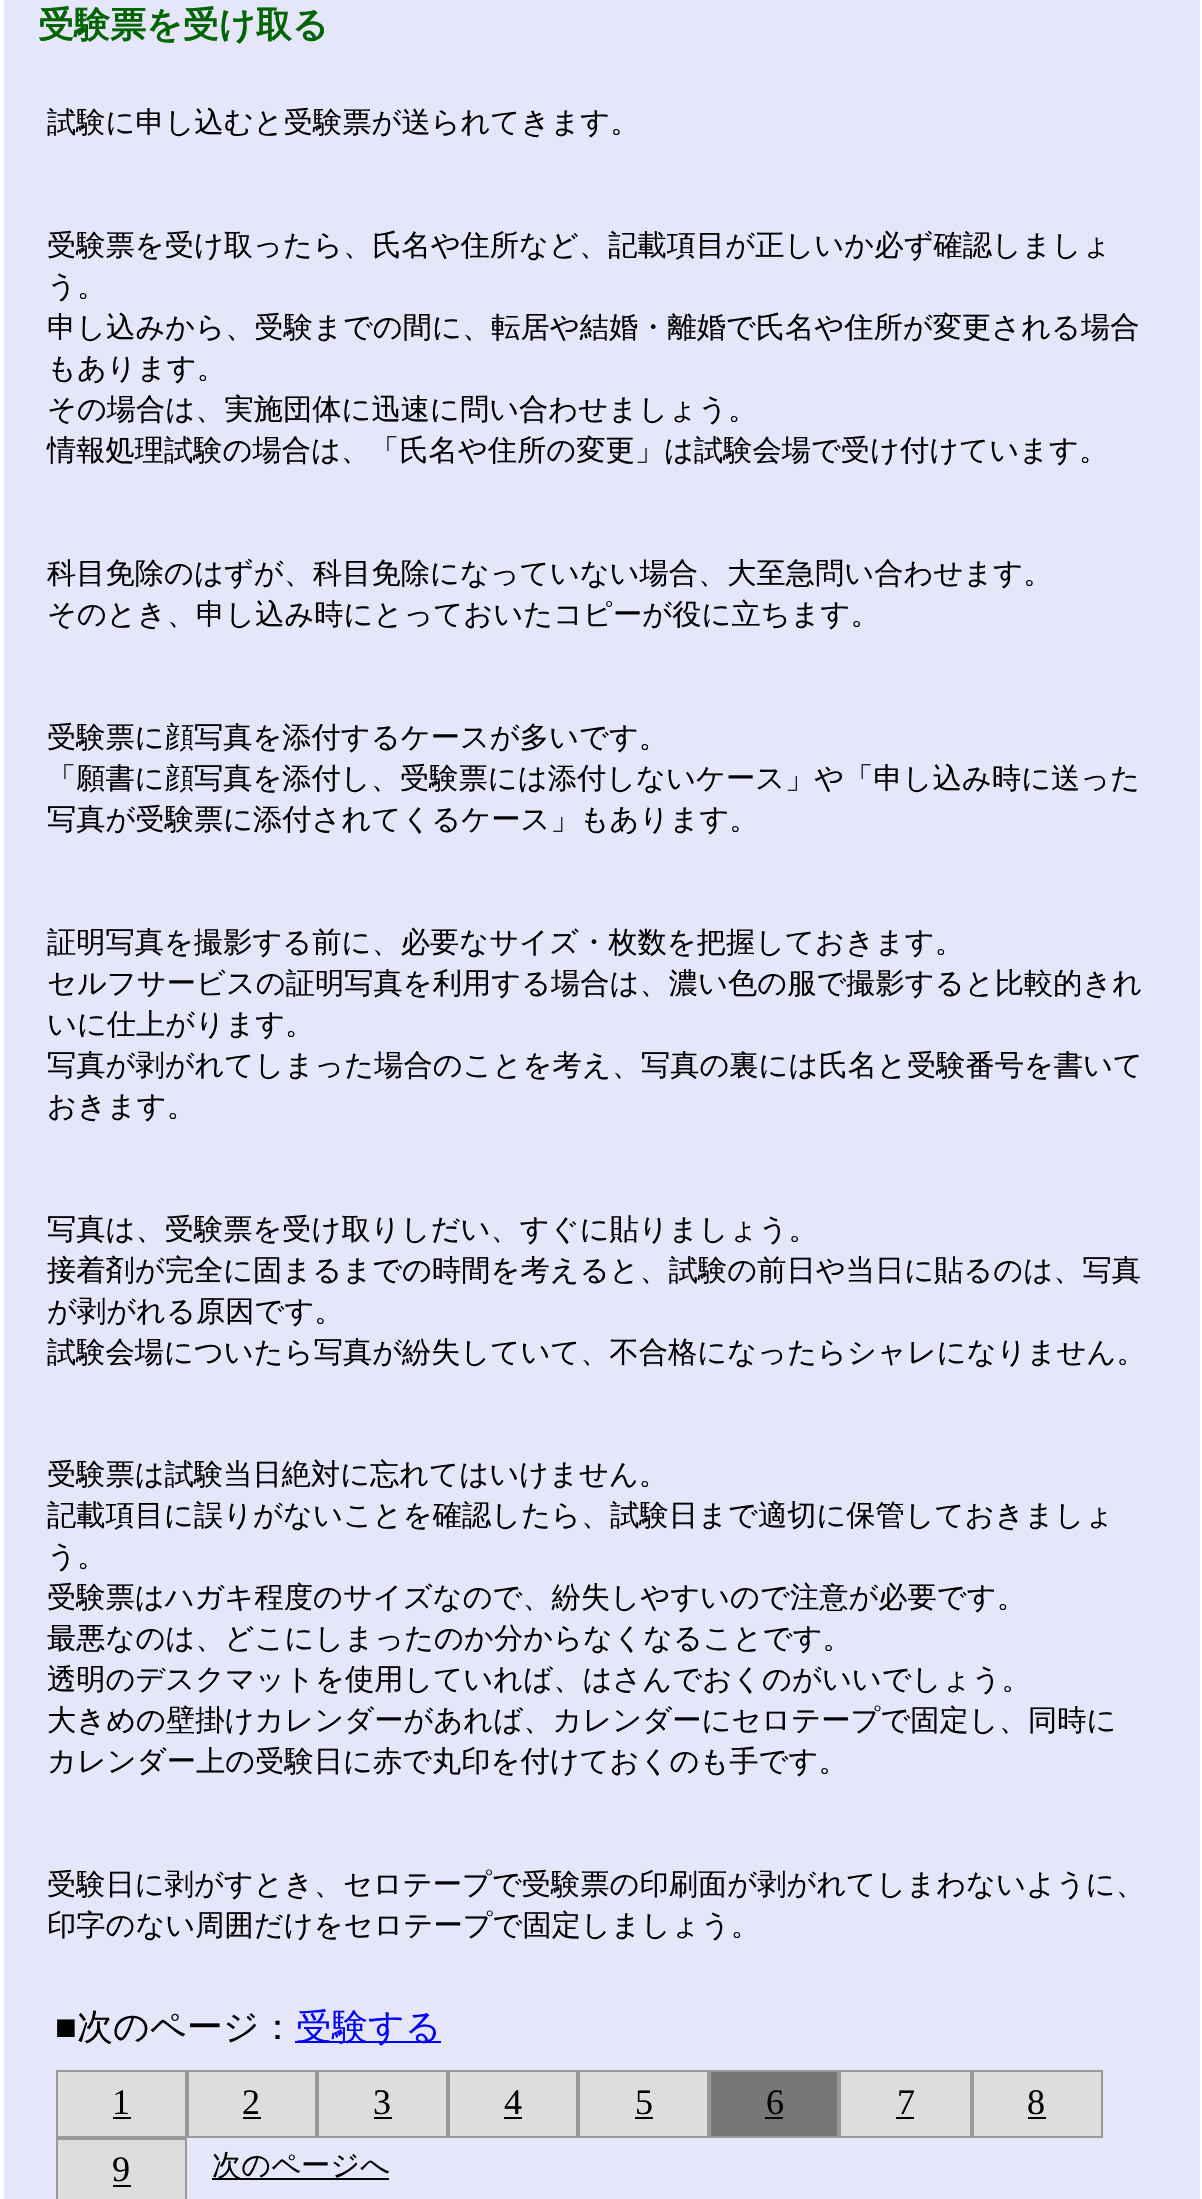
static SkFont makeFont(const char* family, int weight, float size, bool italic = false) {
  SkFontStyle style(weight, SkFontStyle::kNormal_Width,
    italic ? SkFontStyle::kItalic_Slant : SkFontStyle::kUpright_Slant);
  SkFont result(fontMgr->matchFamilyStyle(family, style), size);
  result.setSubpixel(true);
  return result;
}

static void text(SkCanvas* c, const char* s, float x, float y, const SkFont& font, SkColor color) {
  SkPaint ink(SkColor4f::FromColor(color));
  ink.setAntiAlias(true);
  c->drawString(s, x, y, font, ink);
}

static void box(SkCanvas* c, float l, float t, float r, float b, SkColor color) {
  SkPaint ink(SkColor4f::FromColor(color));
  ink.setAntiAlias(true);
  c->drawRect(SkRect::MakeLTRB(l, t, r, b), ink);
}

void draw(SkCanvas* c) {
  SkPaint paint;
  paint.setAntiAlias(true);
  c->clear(0xffe6e6fa);
  paint.setStyle(SkPaint::kStroke_Style);
  paint.setStrokeWidth(2);
  paint.setColor(0xffffffff);
  c->drawRect(SkRect::MakeLTRB(1, -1, 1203, 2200), paint);
  c->drawRect(SkRect::MakeLTRB(3, -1, 1201, 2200), paint);
  SkFont face1 = makeFont("WenQuanYi Zen Hei", 700, 36);
  text(c, "受験票を受け取る", 38, 37, face1, 0xff006400);
  SkFont face2 = makeFont("WenQuanYi Zen Hei", 500, 29.25f);
  text(c, "試験に申し込むと受験票が送られてきます。", 47, 132, face2, 0xff000000);
  text(c, "受験票を受け取ったら、氏名や住所など、記載項目が正しいか必ず確認しましょ", 47, 255, face2, 0xff000000);
  text(c, "う。", 47, 296, face2, 0xff000000);
  text(c, "申し込みから、受験までの間に、転居や結婚・離婚で氏名や住所が変更される場合", 47, 337, face2, 0xff000000);
  text(c, "もあります。", 47, 378, face2, 0xff000000);
  text(c, "その場合は、実施団体に迅速に問い合わせましょう。", 47, 419, face2, 0xff000000);
  text(c, "情報処理試験の場合は、「氏名や住所の変更」は試験会場で受け付けています。", 47, 460, face2, 0xff000000);
  text(c, "科目免除のはずが、科目免除になっていない場合、大至急問い合わせます。", 47, 583, face2, 0xff000000);
  text(c, "そのとき、申し込み時にとっておいたコピーが役に立ちます。", 47, 624, face2, 0xff000000);
  text(c, "受験票に顔写真を添付するケースが多いです。", 47, 747, face2, 0xff000000);
  text(c, "「願書に顔写真を添付し、受験票には添付しないケース」や「申し込み時に送った", 47, 788, face2, 0xff000000);
  text(c, "写真が受験票に添付されてくるケース」もあります。", 47, 829, face2, 0xff000000);
  text(c, "証明写真を撮影する前に、必要なサイズ・枚数を把握しておきます。", 47, 952, face2, 0xff000000);
  text(c, "セルフサービスの証明写真を利用する場合は、濃い色の服で撮影すると比較的きれ", 47, 993, face2, 0xff000000);
  text(c, "いに仕上がります。", 47, 1034, face2, 0xff000000);
  text(c, "写真が剥がれてしまった場合のことを考え、写真の裏には氏名と受験番号を書いて", 47, 1075, face2, 0xff000000);
  text(c, "おきます。", 47, 1116, face2, 0xff000000);
  text(c, "写真は、受験票を受け取りしだい、すぐに貼りましょう。", 47, 1239, face2, 0xff000000);
  text(c, "接着剤が完全に固まるまでの時間を考えると、試験の前日や当日に貼るのは、写真", 47, 1280, face2, 0xff000000);
  text(c, "が剥がれる原因です。", 47, 1321, face2, 0xff000000);
  text(c, "試験会場についたら写真が紛失していて、不合格になったらシャレになりません。", 47, 1362, face2, 0xff000000);
  text(c, "受験票は試験当日絶対に忘れてはいけません。", 47, 1484, face2, 0xff000000);
  text(c, "記載項目に誤りがないことを確認したら、試験日まで適切に保管しておきましょ", 47, 1525, face2, 0xff000000);
  text(c, "う。", 47, 1566, face2, 0xff000000);
  text(c, "受験票はハガキ程度のサイズなので、紛失しやすいので注意が必要です。", 47, 1607, face2, 0xff000000);
  text(c, "最悪なのは、どこにしまったのか分からなくなることです。", 47, 1648, face2, 0xff000000);
  text(c, "透明のデスクマットを使用していれば、はさんでおくのがいいでしょう。", 47, 1689, face2, 0xff000000);
  text(c, "大きめの壁掛けカレンダーがあれば、カレンダーにセロテープで固定し、同時に", 47, 1730, face2, 0xff000000);
  text(c, "カレンダー上の受験日に赤で丸印を付けておくのも手です。", 47, 1771, face2, 0xff000000);
  text(c, "受験日に剥がすとき、セロテープで受験票の印刷面が剥がれてしまわないように、", 47, 1894, face2, 0xff000000);
  text(c, "印字のない周囲だけをセロテープで固定しましょう。", 47, 1935, face2, 0xff000000);
  SkFont face3 = makeFont("Liberation Serif", 400, 36);
  text(c, "■", 55, 2039, face3, 0xff000000);
  SkFont face4 = makeFont("WenQuanYi Zen Hei", 500, 36);
  text(c, "次のページ：", 77, 2039, face4, 0xff000000);
  box(c, 295, 2041, 441, 2043, 0xff0000ff);
  text(c, "受験する", 296, 2039, face4, 0xff0000ff);
  paint.setStyle(SkPaint::kFill_Style);
  paint.setColor(0xffdddddd);
  c->drawRect(SkRect::MakeLTRB(57, 2071, 186, 2137), paint);
  paint.setStyle(SkPaint::kStroke_Style);
  paint.setColor(0xff999999);
  c->drawRect(SkRect::MakeLTRB(57, 2071, 186, 2137), paint);
  text(c, "1", 112, 2114, face3, 0xff000000);
  box(c, 113, 2117, 131, 2119, 0xff000000);
  paint.setStyle(SkPaint::kFill_Style);
  paint.setColor(0xffdddddd);
  c->drawRect(SkRect::MakeLTRB(188, 2071, 316, 2137), paint);
  paint.setStyle(SkPaint::kStroke_Style);
  paint.setColor(0xff999999);
  c->drawRect(SkRect::MakeLTRB(188, 2071, 316, 2137), paint);
  text(c, "2", 242, 2114, face3, 0xff000000);
  box(c, 243, 2117, 261, 2119, 0xff000000);
  paint.setStyle(SkPaint::kFill_Style);
  paint.setColor(0xffdddddd);
  c->drawRect(SkRect::MakeLTRB(318, 2071, 447, 2137), paint);
  paint.setStyle(SkPaint::kStroke_Style);
  paint.setColor(0xff999999);
  c->drawRect(SkRect::MakeLTRB(318, 2071, 447, 2137), paint);
  text(c, "3", 373, 2114, face3, 0xff000000);
  box(c, 374, 2117, 392, 2119, 0xff000000);
  paint.setStyle(SkPaint::kFill_Style);
  paint.setColor(0xffdddddd);
  c->drawRect(SkRect::MakeLTRB(449, 2071, 577, 2137), paint);
  paint.setStyle(SkPaint::kStroke_Style);
  paint.setColor(0xff999999);
  c->drawRect(SkRect::MakeLTRB(449, 2071, 577, 2137), paint);
  text(c, "4", 504, 2114, face3, 0xff000000);
  box(c, 504, 2117, 522, 2119, 0xff000000);
  paint.setStyle(SkPaint::kFill_Style);
  paint.setColor(0xffdddddd);
  c->drawRect(SkRect::MakeLTRB(579, 2071, 708, 2137), paint);
  paint.setStyle(SkPaint::kStroke_Style);
  paint.setColor(0xff999999);
  c->drawRect(SkRect::MakeLTRB(579, 2071, 708, 2137), paint);
  text(c, "5", 635, 2114, face3, 0xff000000);
  box(c, 635, 2117, 653, 2119, 0xff000000);
  paint.setStyle(SkPaint::kFill_Style);
  paint.setColor(0xff777777);
  c->drawRect(SkRect::MakeLTRB(710, 2071, 838, 2137), paint);
  paint.setStyle(SkPaint::kStroke_Style);
  paint.setColor(0xff999999);
  c->drawRect(SkRect::MakeLTRB(710, 2071, 838, 2137), paint);
  text(c, "6", 766, 2114, face3, 0xff000000);
  box(c, 765, 2117, 783, 2119, 0xff000000);
  paint.setStyle(SkPaint::kFill_Style);
  paint.setColor(0xffdddddd);
  c->drawRect(SkRect::MakeLTRB(840, 2071, 971, 2137), paint);
  paint.setStyle(SkPaint::kStroke_Style);
  paint.setColor(0xff999999);
  c->drawRect(SkRect::MakeLTRB(840, 2071, 971, 2137), paint);
  text(c, "7", 897, 2114, face3, 0xff000000);
  box(c, 896, 2117, 914, 2119, 0xff000000);
  paint.setStyle(SkPaint::kFill_Style);
  paint.setColor(0xffdddddd);
  c->drawRect(SkRect::MakeLTRB(973, 2071, 1102, 2137), paint);
  paint.setStyle(SkPaint::kStroke_Style);
  paint.setColor(0xff999999);
  c->drawRect(SkRect::MakeLTRB(973, 2071, 1102, 2137), paint);
  text(c, "8", 1027, 2114, face3, 0xff000000);
  box(c, 1028, 2117, 1046, 2119, 0xff000000);
  paint.setStyle(SkPaint::kFill_Style);
  paint.setColor(0xffdddddd);
  c->drawRect(SkRect::MakeLTRB(57, 2139, 186, 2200), paint);
  paint.setStyle(SkPaint::kStroke_Style);
  paint.setColor(0xff999999);
  c->drawRect(SkRect::MakeLTRB(57, 2139, 186, 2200), paint);
  text(c, "9", 112, 2181, face3, 0xff000000);
  box(c, 113, 2185, 131, 2187, 0xff000000);
  box(c, 212, 2178, 389, 2180, 0xff000000);
  text(c, "次のページへ", 212, 2175, face2, 0xff000000);
}
